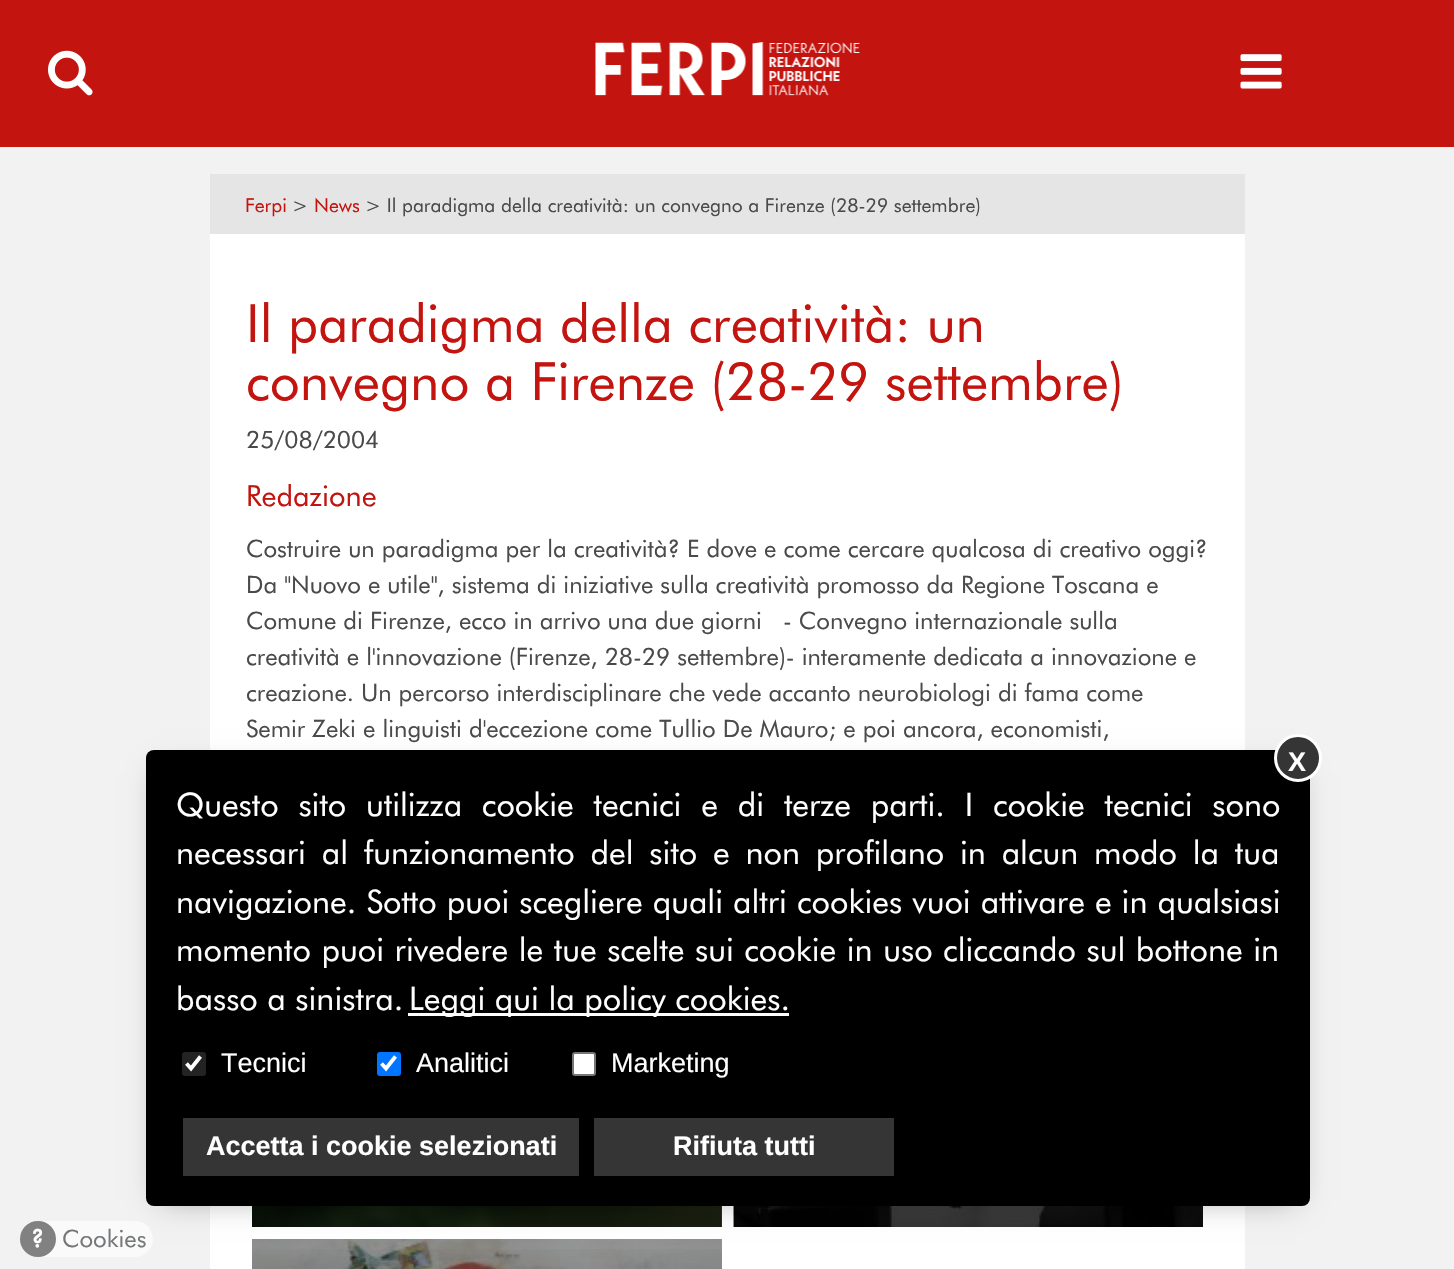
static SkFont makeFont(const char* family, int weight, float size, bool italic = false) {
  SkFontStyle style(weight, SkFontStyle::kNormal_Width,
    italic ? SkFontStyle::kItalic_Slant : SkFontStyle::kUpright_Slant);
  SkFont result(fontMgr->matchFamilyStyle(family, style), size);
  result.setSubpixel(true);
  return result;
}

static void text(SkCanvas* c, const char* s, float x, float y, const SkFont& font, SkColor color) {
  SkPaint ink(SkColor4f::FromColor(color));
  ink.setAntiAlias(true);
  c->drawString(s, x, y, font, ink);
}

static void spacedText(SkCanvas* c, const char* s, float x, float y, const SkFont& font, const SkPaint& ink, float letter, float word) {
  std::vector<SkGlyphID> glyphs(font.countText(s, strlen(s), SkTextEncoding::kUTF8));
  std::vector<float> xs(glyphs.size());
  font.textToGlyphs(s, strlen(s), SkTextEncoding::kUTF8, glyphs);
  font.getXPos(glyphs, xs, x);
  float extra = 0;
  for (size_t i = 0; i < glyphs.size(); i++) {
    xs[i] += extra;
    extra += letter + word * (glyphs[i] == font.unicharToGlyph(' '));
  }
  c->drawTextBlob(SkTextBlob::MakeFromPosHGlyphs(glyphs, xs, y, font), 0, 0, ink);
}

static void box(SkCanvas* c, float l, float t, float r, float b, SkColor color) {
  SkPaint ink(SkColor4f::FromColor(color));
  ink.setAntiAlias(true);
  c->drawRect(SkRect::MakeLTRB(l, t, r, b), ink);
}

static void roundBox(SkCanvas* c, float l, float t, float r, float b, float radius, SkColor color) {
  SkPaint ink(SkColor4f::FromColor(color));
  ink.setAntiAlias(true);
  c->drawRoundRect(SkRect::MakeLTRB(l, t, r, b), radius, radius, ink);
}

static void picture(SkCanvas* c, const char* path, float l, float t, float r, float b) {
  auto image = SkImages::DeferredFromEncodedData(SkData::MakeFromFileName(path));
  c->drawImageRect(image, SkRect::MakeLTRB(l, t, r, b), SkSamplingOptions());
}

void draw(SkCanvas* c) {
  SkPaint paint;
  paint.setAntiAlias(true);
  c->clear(0xfff2f2f2);
  box(c, 0, 0, 1454, 147, 0xffc3140f);
  picture(c, "img_01.png", 48, 50, 93, 96);
  picture(c, "img_02.png", 595, 42, 860, 96);
  picture(c, "img_03.png", 1240, 54, 1282, 89);
  box(c, 210, 234, 1245, 750, 0xffffffff);
  box(c, 210, 174, 1245, 234, 0xffe5e5e5);
  SkFont face1 = makeFont("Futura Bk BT", 400, 19.2f);
  text(c, "Ferpi", 245, 212, face1, 0xffc3140f);
  text(c, ">", 292, 212, face1, 0xff4a4a4a);
  text(c, "News", 314, 212, face1, 0xffc3140f);
  text(c, "> Il paradigma della creatività: un convegno a Firenze (28-29 settembre)", 365, 212, face1, 0xff4a4a4a);
  SkFont face2 = makeFont("Futura Bk BT", 400, 52.75f);
  text(c, "Il paradigma della creatività: un", 246, 342, face2, 0xffc3140f);
  text(c, "convegno a Firenze (28-29 settembre)", 246, 400, face2, 0xffc3140f);
  SkFont face3 = makeFont("Futura Bk BT", 400, 24);
  text(c, "25/08/2004", 246, 448, face3, 0xff4a4a4a);
  SkFont face4 = makeFont("Futura Bk BT", 400, 29);
  text(c, "Redazione", 246, 506, face4, 0xffc3140f);
  text(c, "Costruire un paradigma per la creatività? E dove e come cercare qualcosa di creativo oggi?", 246, 557, face3, 0xff4a4a4a);
  text(c, "Da \"Nuovo e utile\", sistema di iniziative sulla creatività promosso da Regione Toscana e", 246, 593, face3, 0xff4a4a4a);
  text(c, "Comune di Firenze, ecco in arrivo una due giorni", 246, 629, face3, 0xff4a4a4a);
  text(c, "- Convegno internazionale sulla", 783, 629, face3, 0xff4a4a4a);
  text(c, "creatività e l'innovazione (Firenze, 28-29 settembre)- interamente dedicata a innovazione e", 246, 665, face3, 0xff4a4a4a);
  text(c, "creazione. Un percorso interdisciplinare che vede accanto neurobiologi di fama come", 246, 701, face3, 0xff4a4a4a);
  text(c, "Semir Zeki e linguisti d'eccezione come Tullio De Mauro; e poi ancora, economisti,", 246, 737, face3, 0xff4a4a4a);
  box(c, 210, 1206, 1245, 1269, 0xffffffff);
  box(c, 721, 1239, 722, 1269, 0xff999999);
  box(c, 721, 1206, 722, 1227, 0xff999999);
  picture(c, "img_04.png", 252, 1206, 722, 1227);
  {
    const SkColor colors[] = {0x00000000, 0xa3000000};
    const float stops[] = {0, 1};
    const SkPoint ends[] = {{487, 939}, {487, 1227}};
    paint.setShader(SkGradientShader::MakeLinear(ends, colors, stops, 2, SkTileMode::kClamp));
    paint.setAlpha(255);
  }
  c->drawRect(SkRect::MakeLTRB(252, 1206, 722, 1227), paint);
  picture(c, "img_05.png", 733, 1206, 1203, 1227);
  picture(c, "img_06.png", 252, 1239, 722, 1269);
  {
    const SkColor colors[] = {0x00000000, 0xa3000000};
    const float stops[] = {0, 1};
    const SkPoint ends[] = {{487, 1239}, {487, 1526}};
    paint.setShader(SkGradientShader::MakeLinear(ends, colors, stops, 2, SkTileMode::kClamp));
    paint.setAlpha(255);
  }
  c->drawRect(SkRect::MakeLTRB(252, 1249, 722, 1269), paint);
  paint.setShader(nullptr);
  paint.setColor(0x5e000000);
  paint.setMaskFilter(SkMaskFilter::MakeBlur(kNormal_SkBlurStyle, 15));
  c->drawRect(SkRect::MakeLTRB(161, 773, 1295, 1199), paint);
  paint.setMaskFilter(nullptr);
  roundBox(c, 146, 750, 1310, 1206, 8, 0xff000000);
  paint.setColor(0xff353535);
  c->drawCircle(1298, 758, 22.5f, paint);
  paint.setStyle(SkPaint::kStroke_Style);
  paint.setStrokeWidth(3);
  paint.setColor(0xffffffff);
  c->drawCircle(1298, 758, 22.5f, paint);
  SkFont face5 = makeFont("Liberation Sans", 700, 27);
  text(c, "X", 1288, 771, face5, 0xffffffff);
  SkFont face6 = makeFont("Futura Bk BT", 400, 32.4f);
  paint.setStyle(SkPaint::kFill_Style);
  spacedText(c, "Questo sito utilizza cookie tecnici e di terze parti. I cookie tecnici sono", 176, 816, face6, paint, 0, 10.25f);
  spacedText(c, "necessari al funzionamento del sito e non profilano in alcun modo la tua", 176, 864, face6, paint, 0, 6.25f);
  spacedText(c, "navigazione. Sotto puoi scegliere quali altri cookies vuoi attivare e in qualsiasi", 176, 913, face6, paint, 0, 0.5f);
  spacedText(c, "momento puoi rivedere le tue scelte sui cookie in uso cliccando sul bottone in", 176, 961, face6, paint, 0, 1);
  text(c, "basso a sinistra.", 176, 1010, face6, 0xffffffff);
  box(c, 408, 1013, 789, 1016, 0xffffffff);
  text(c, "Leggi qui la policy cookies.", 409, 1010, face6, 0xffffffff);
  roundBox(c, 182, 1052, 206, 1076, 3, 0xff232323);
  paint.setStyle(SkPaint::kStroke_Style);
  paint.setStrokeWidth(3.8f);
  c->drawPath(SkPathBuilder().moveTo(186.5f, 1063.5f).lineTo(191, 1068.5f).lineTo(200.5f, 1056.5f).detach(), paint);
  SkFont face7 = makeFont("Liberation Sans", 400, 27);
  text(c, "Tecnici", 221, 1072, face7, 0xffffffff);
  roundBox(c, 377, 1052, 401, 1076, 3, 0xff0075ff);
  c->drawPath(SkPathBuilder().moveTo(381.5f, 1063.5f).lineTo(386, 1068.5f).lineTo(395.5f, 1056.5f).detach(), paint);
  text(c, "Analitici", 416, 1072, face7, 0xffffffff);
  paint.setStyle(SkPaint::kFill_Style);
  c->drawRoundRect(SkRect::MakeLTRB(573, 1053, 595, 1075), 2, 2, paint);
  paint.setStyle(SkPaint::kStroke_Style);
  paint.setStrokeWidth(2);
  paint.setColor(0xff767676);
  c->drawRoundRect(SkRect::MakeLTRB(573, 1053, 595, 1075), 2, 2, paint);
  text(c, "Marketing", 611, 1072, face7, 0xffffffff);
  box(c, 183, 1118, 579, 1176, 0xff353535);
  text(c, "Accetta i cookie selezionati", 206, 1155, face5, 0xffffffff);
  box(c, 594, 1118, 894, 1176, 0xff353535);
  text(c, "Rifiuta tutti", 673, 1155, face5, 0xffffffff);
  roundBox(c, 21, 1221, 153, 1257, 18, 0xfffafafa);
  paint.setStyle(SkPaint::kFill_Style);
  paint.setColor(0xff818181);
  c->drawCircle(38, 1239, 18, paint);
  SkFont face8 = makeFont("Futura Bk BT", 700, 24);
  text(c, "?", 31, 1247, face8, 0xffffffff);
  text(c, "Cookies", 62, 1247, face3, 0xff757779);
}
